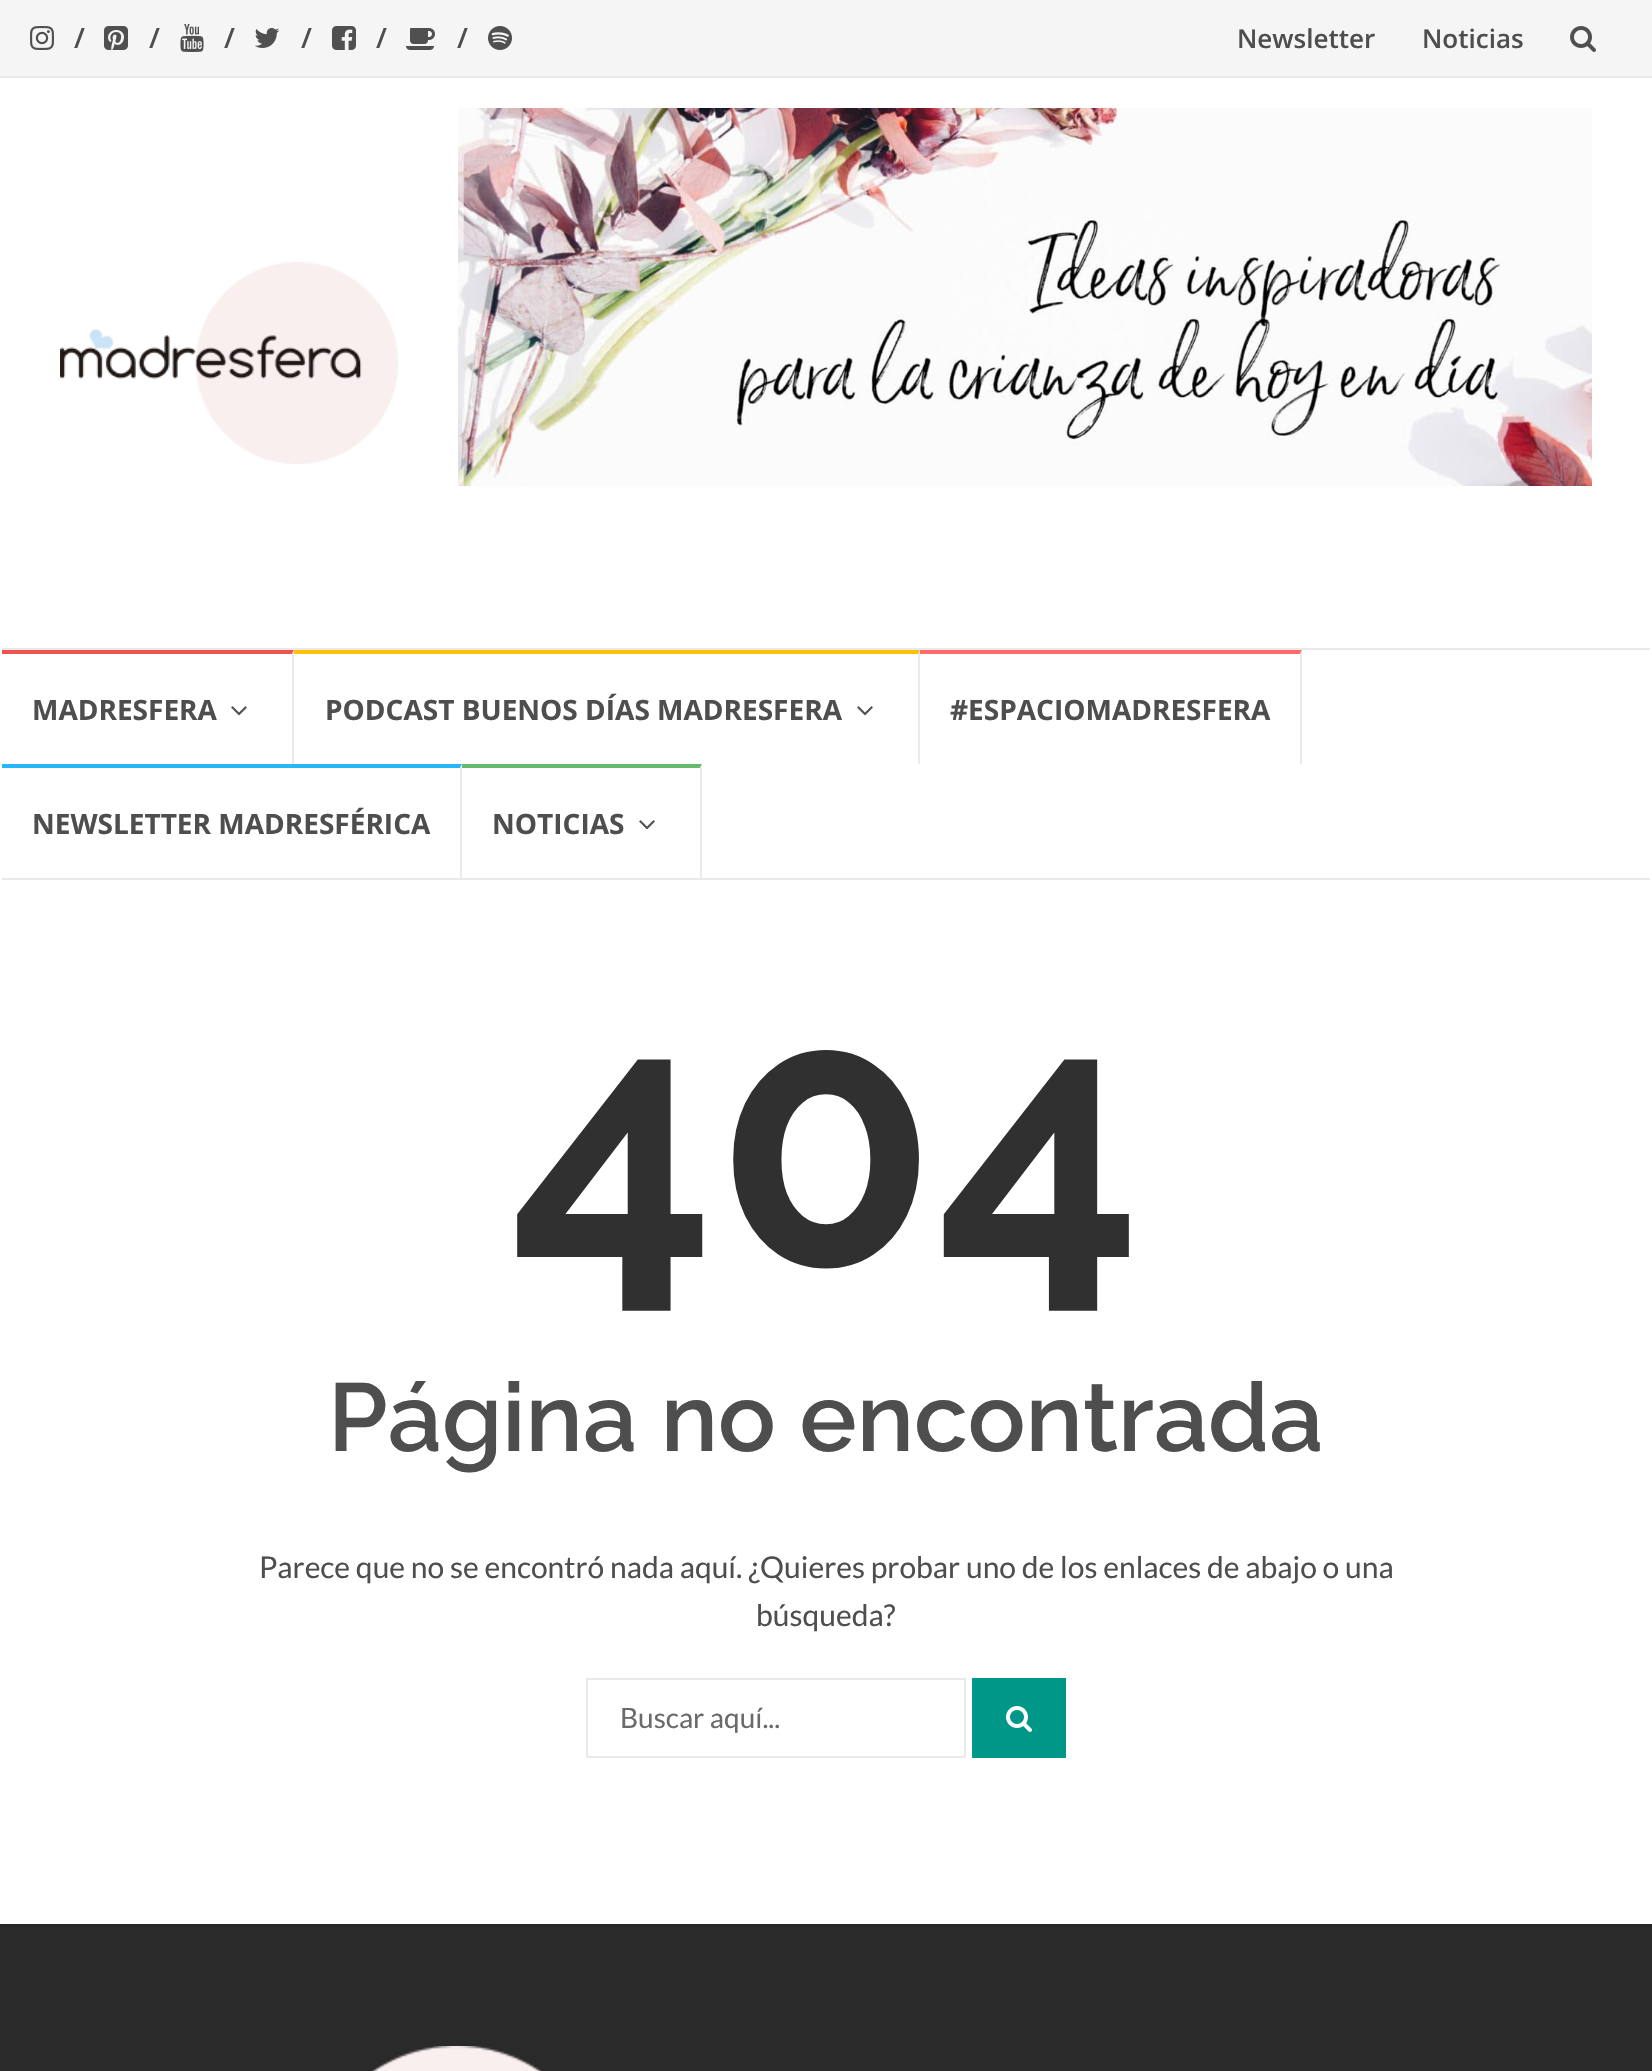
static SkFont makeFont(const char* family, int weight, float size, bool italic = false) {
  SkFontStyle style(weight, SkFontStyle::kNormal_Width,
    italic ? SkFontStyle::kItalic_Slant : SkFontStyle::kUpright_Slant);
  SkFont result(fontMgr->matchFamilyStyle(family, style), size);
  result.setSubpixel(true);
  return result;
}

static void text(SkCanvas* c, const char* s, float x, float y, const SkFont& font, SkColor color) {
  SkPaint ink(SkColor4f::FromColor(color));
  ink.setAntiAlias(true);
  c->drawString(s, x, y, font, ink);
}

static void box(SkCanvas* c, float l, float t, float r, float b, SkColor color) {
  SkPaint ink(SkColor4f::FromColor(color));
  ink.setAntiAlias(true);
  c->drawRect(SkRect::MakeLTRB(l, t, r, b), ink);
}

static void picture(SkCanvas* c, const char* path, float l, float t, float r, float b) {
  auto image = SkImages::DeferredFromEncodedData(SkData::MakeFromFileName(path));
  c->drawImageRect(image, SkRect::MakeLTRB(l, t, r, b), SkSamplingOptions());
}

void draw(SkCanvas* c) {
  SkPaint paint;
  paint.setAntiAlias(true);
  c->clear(0xffffffff);
  box(c, 0, 0, 1652, 76, 0xfff5f5f5);
  box(c, 0, 76, 1652, 78, 0xffeaeaea);
  picture(c, "img_01.png", 30, 26, 54, 50);
  SkFont face1 = makeFont("Open Sans", 600, 28);
  text(c, "/", 74, 48, face1, 0xff4e4e4e);
  picture(c, "img_02.png", 104, 26, 128, 50);
  text(c, "/", 149, 48, face1, 0xff4e4e4e);
  picture(c, "img_03.png", 180, 24, 204, 52);
  text(c, "/", 224, 48, face1, 0xff4e4e4e);
  picture(c, "img_04.png", 254, 28, 280, 48);
  text(c, "/", 301, 48, face1, 0xff4e4e4e);
  picture(c, "img_05.png", 332, 26, 356, 50);
  text(c, "/", 376, 48, face1, 0xff4e4e4e);
  picture(c, "img_06.png", 406, 28, 435, 50);
  text(c, "/", 457, 48, face1, 0xff4e4e4e);
  picture(c, "img_07.png", 488, 26, 512, 50);
  SkFont face2 = makeFont("Open Sans", 600, 26);
  text(c, "Newsletter", 1237, 48, face2, 0xff4e4e4e);
  text(c, "Noticias", 1422, 48, face2, 0xff4e4e4e);
  picture(c, "img_08.png", 1570, 26, 1596, 52);
  picture(c, "img_09.png", 60, 262, 398, 464);
  picture(c, "img_10.png", 458, 108, 1592, 486);
  box(c, 2, 648, 1650, 650, 0xffeaeaea);
  box(c, 2, 878, 1650, 880, 0xffeaeaea);
  paint.setColor(0xffef5350);
  c->drawPath(SkPathBuilder().moveTo(2, 650).lineTo(294, 650).lineTo(292, 654).lineTo(2, 654).close().detach(), paint);
  paint.setColor(0xffeaeaea);
  c->drawPath(SkPathBuilder().moveTo(294, 650).lineTo(294, 764).lineTo(292, 764).lineTo(292, 654).close().detach(), paint);
  SkFont face3 = makeFont("Open Sans", 700, 28);
  text(c, "MADRESFERA", 32, 720, face3, 0xff4e4e4e);
  picture(c, "img_11.png", 231, 706, 247, 716);
  paint.setColor(0xffffc107);
  c->drawPath(SkPathBuilder().moveTo(294, 650).lineTo(920, 650).lineTo(918, 654).lineTo(294, 654).close().detach(), paint);
  paint.setColor(0xffeaeaea);
  c->drawPath(SkPathBuilder().moveTo(920, 650).lineTo(920, 764).lineTo(918, 764).lineTo(918, 654).close().detach(), paint);
  text(c, "PODCAST BUENOS DÍAS MADRESFERA", 325, 720, face3, 0xff4e4e4e);
  picture(c, "img_11.png", 857, 706, 873, 716);
  paint.setColor(0xffff6b6b);
  c->drawPath(SkPathBuilder().moveTo(920, 650).lineTo(1302, 650).lineTo(1300, 654).lineTo(920, 654).close().detach(), paint);
  paint.setColor(0xffeaeaea);
  c->drawPath(SkPathBuilder().moveTo(1302, 650).lineTo(1302, 764).lineTo(1300, 764).lineTo(1300, 654).close().detach(), paint);
  text(c, "#ESPACIOMADRESFERA", 950, 720, face3, 0xff4e4e4e);
  paint.setColor(0xff29b6f6);
  c->drawPath(SkPathBuilder().moveTo(2, 764).lineTo(462, 764).lineTo(460, 768).lineTo(2, 768).close().detach(), paint);
  paint.setColor(0xffeaeaea);
  c->drawPath(SkPathBuilder().moveTo(462, 764).lineTo(462, 878).lineTo(460, 878).lineTo(460, 768).close().detach(), paint);
  text(c, "NEWSLETTER MADRESFÉRICA", 32, 834, face3, 0xff4e4e4e);
  paint.setColor(0xff66bb6a);
  c->drawPath(SkPathBuilder().moveTo(462, 764).lineTo(702, 764).lineTo(700, 768).lineTo(462, 768).close().detach(), paint);
  paint.setColor(0xffeaeaea);
  c->drawPath(SkPathBuilder().moveTo(702, 764).lineTo(702, 878).lineTo(700, 878).lineTo(700, 768).close().detach(), paint);
  text(c, "NOTICIAS", 492, 834, face3, 0xff4e4e4e);
  picture(c, "img_11.png", 639, 820, 655, 830);
  SkFont face4 = makeFont("Raleway", 700, 360);
  text(c, "404", 510, 1265, face4, 0xff303030);
  SkFont face5 = makeFont("Raleway", 600, 96);
  text(c, "Página no encontrada", 328, 1451, face5, 0xff4e4e4e);
  SkFont face6 = makeFont("Lato", 400, 30);
  text(c, "Parece que no se encontró nada aquí. ¿Quieres probar uno de los enlaces de abajo o una", 259, 1578, face6, 0xff4e4e4e);
  text(c, "búsqueda?", 756, 1626, face6, 0xff4e4e4e);
  paint.setStyle(SkPaint::kStroke_Style);
  paint.setStrokeWidth(2);
  c->drawRect(SkRect::MakeLTRB(587, 1679, 965, 1757), paint);
  SkFont face7 = makeFont("Lato", 400, 28);
  text(c, "Buscar aquí...", 620, 1728, face7, 0xff6a6a6a);
  box(c, 972, 1678, 1066, 1758, 0xff009688);
  picture(c, "img_12.png", 1006, 1706, 1032, 1732);
  box(c, 0, 1926, 1652, 2071, 0xff2a2a2a);
  box(c, 0, 1924, 1652, 1926, 0xff262626);
  picture(c, "img_13.png", 371, 2046, 541, 2071);
}
